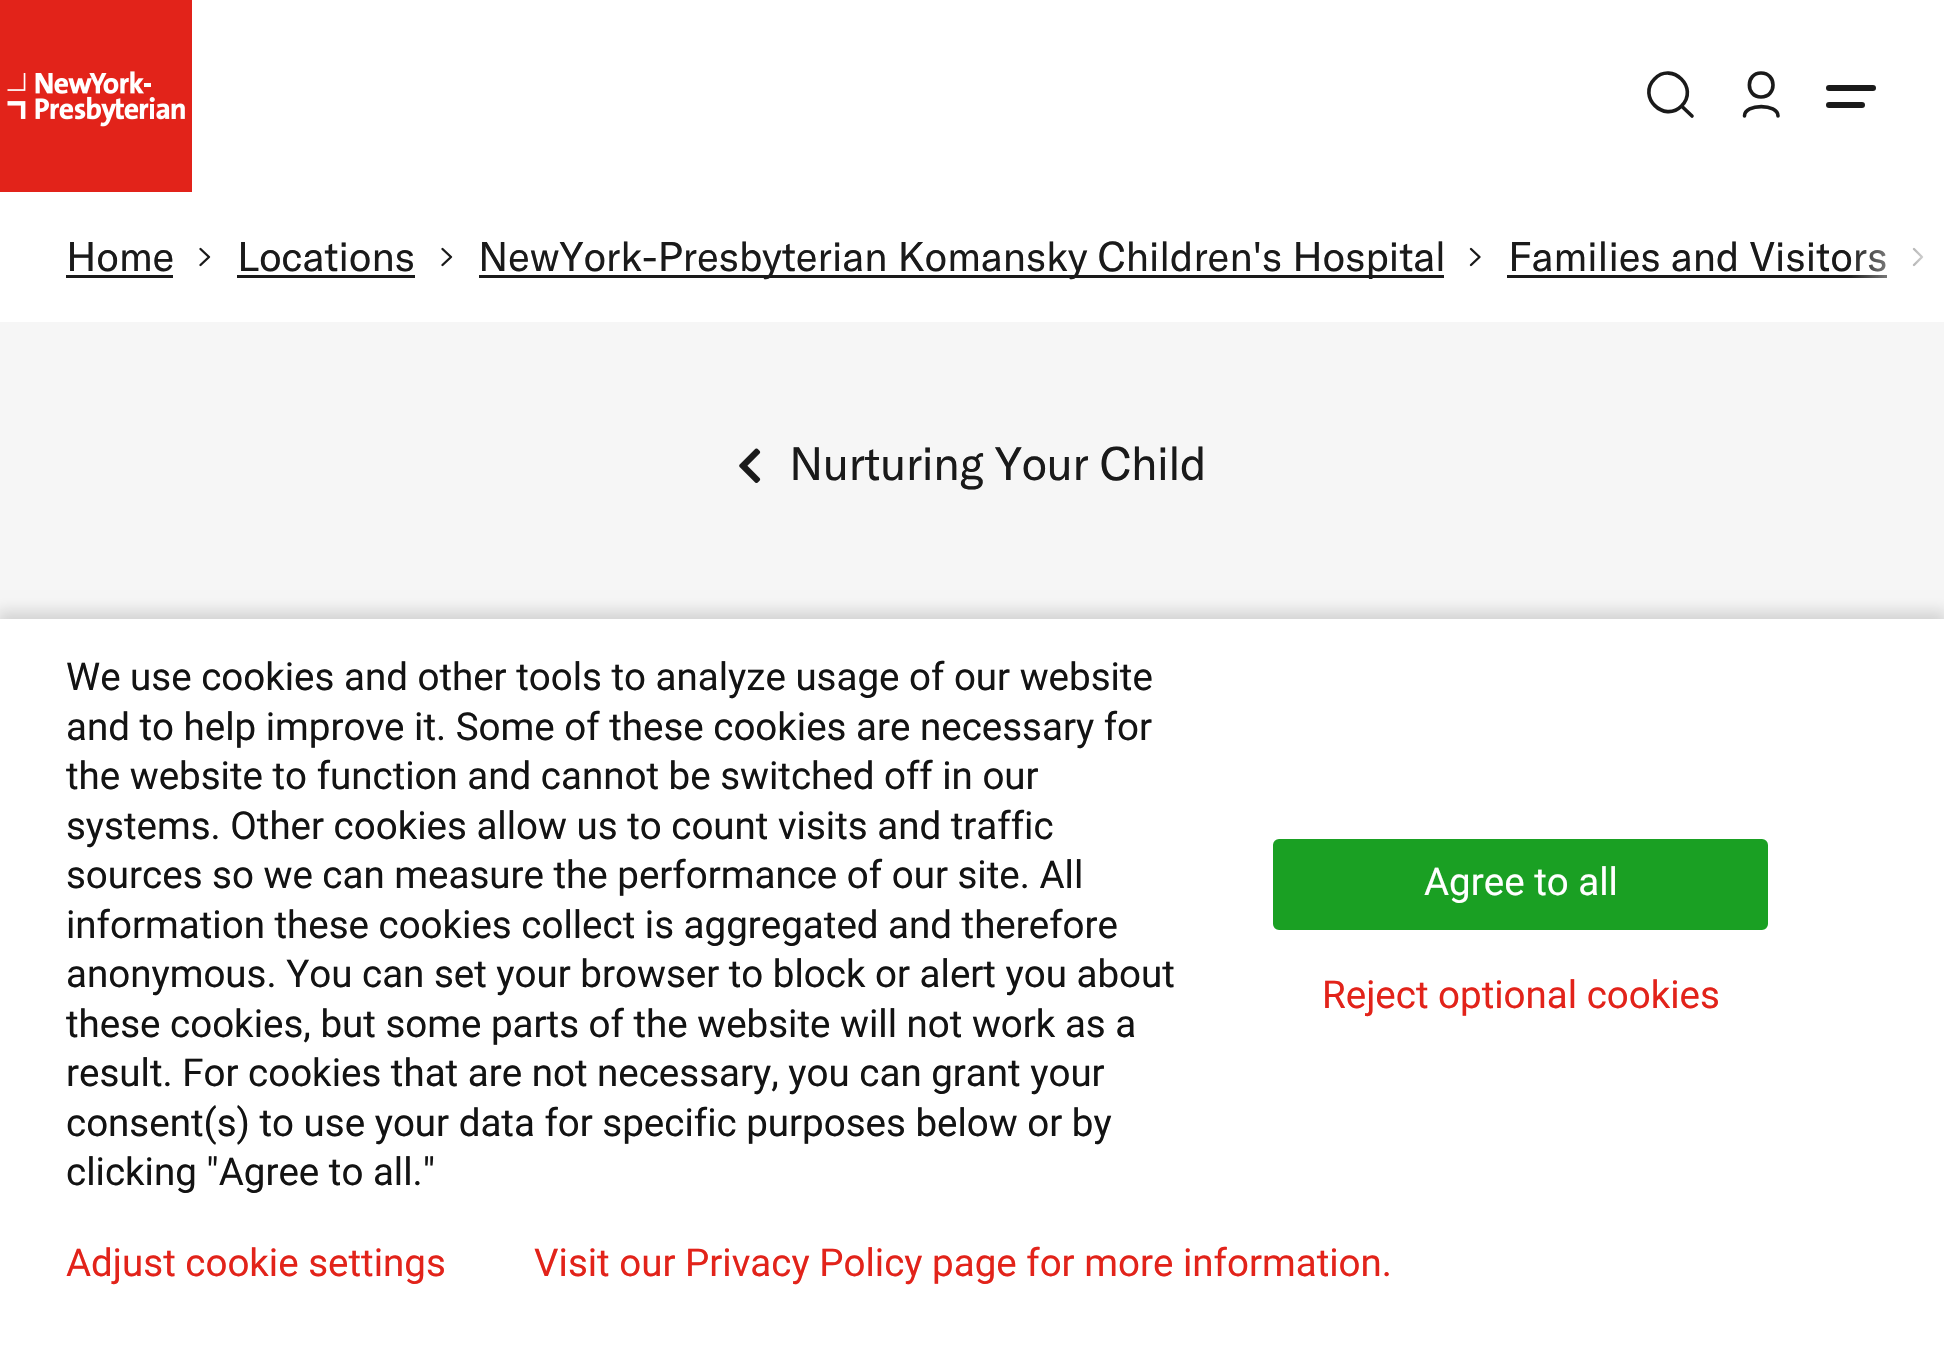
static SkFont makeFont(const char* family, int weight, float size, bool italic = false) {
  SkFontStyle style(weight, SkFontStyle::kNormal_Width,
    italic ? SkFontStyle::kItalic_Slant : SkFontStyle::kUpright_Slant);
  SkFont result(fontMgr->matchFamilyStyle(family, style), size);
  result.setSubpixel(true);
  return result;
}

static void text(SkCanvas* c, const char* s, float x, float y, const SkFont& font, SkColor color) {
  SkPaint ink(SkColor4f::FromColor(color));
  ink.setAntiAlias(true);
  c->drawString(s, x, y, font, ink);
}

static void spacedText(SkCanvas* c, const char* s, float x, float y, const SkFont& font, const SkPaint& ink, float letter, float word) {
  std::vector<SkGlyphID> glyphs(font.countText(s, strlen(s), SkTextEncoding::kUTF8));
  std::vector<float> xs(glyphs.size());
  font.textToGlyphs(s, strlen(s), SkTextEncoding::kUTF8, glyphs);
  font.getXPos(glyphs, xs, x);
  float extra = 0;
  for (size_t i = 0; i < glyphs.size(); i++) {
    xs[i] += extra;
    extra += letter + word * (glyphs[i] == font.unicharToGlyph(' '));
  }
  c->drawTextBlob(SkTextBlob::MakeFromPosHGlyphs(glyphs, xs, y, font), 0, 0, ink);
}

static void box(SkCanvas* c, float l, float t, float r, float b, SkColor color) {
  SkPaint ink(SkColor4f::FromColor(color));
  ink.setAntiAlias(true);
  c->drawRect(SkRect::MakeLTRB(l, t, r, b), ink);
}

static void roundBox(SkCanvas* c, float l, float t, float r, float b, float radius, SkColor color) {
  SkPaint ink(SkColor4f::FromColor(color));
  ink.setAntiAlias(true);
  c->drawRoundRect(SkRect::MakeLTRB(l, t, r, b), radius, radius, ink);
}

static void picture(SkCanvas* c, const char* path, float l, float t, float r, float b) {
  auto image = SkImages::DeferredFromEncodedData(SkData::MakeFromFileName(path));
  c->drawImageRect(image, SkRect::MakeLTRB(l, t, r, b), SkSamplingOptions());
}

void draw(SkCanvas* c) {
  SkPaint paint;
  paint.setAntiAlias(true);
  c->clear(0xffffffff);
  picture(c, "img_01.png", 0, 0, 192, 192);
  paint.setStyle(SkPaint::kStroke_Style);
  paint.setStrokeWidth(3.6f);
  paint.setStrokeCap(SkPaint::kRound_Cap);
  paint.setStrokeJoin(SkPaint::kRound_Join);
  paint.setColor(0xff1a1a1a);
  c->drawPath(SkPathBuilder().moveTo(1692, 116).lineTo(1681.5f, 106).moveTo(1681.5f, 106).cubicTo(1699.5f, 88, 1672, 61, 1654.5f, 79).cubicTo(1637, 96.5f, 1664, 123.5f, 1681.5f, 106).close().detach(), paint);
  c->drawPath(SkPathBuilder().moveTo(1744.5f, 116).cubicTo(1744.5f, 103.5f, 1778, 103.5f, 1778, 116).moveTo(1761, 97).cubicTo(1777, 97, 1777, 73, 1761, 73).cubicTo(1745.5f, 73, 1745.5f, 97, 1761, 97).close().detach(), paint);
  roundBox(c, 1826, 85, 1876, 91, 3, 0xff1a1a1a);
  roundBox(c, 1826, 102, 1865, 108, 3, 0xff1a1a1a);
  SkFont face1 = makeFont("GT America", 400, 40.85f);
  paint.setStyle(SkPaint::kFill_Style);
  spacedText(c, "Home", 66, 271, face1, paint, -0.3f, 0);
  box(c, 66, 275, 173, 278, 0xff1a1a1a);
  paint.setStyle(SkPaint::kStroke_Style);
  paint.setStrokeWidth(2.4f);
  c->drawPath(SkPathBuilder().moveTo(200.5f, 265).lineTo(209, 257).lineTo(200.5f, 249).detach(), paint);
  paint.setStyle(SkPaint::kFill_Style);
  spacedText(c, "Locations", 237, 271, face1, paint, -0.3f, 0);
  box(c, 237, 275, 415, 278, 0xff1a1a1a);
  paint.setStyle(SkPaint::kStroke_Style);
  c->drawPath(SkPathBuilder().moveTo(442.5f, 265).lineTo(451, 257).lineTo(442.5f, 249).detach(), paint);
  box(c, 479, 275, 1444, 278, 0xff1a1a1a);
  paint.setStyle(SkPaint::kFill_Style);
  spacedText(c, "NewYork-Presbyterian Komansky Children's Hospital", 478, 271, face1, paint, -0.3f, 0);
  paint.setStyle(SkPaint::kStroke_Style);
  c->drawPath(SkPathBuilder().moveTo(1471, 265).lineTo(1479.5f, 257).lineTo(1471, 249).detach(), paint);
  paint.setStyle(SkPaint::kFill_Style);
  spacedText(c, "Families and Visitors", 1508, 271, face1, paint, -0.3f, 0);
  box(c, 1507, 275, 1887, 278, 0xff1a1a1a);
  paint.setStyle(SkPaint::kStroke_Style);
  c->drawPath(SkPathBuilder().moveTo(1914, 265).lineTo(1922, 257).lineTo(1914, 249).detach(), paint);
  paint.setStyle(SkPaint::kFill_Style);
  {
    const SkColor colors[] = {0x00ffffff, 0xffffffff};
    const float stops[] = {0, 1};
    const SkPoint ends[] = {{1848, 268}, {1944, 268}};
    paint.setShader(SkGradientShader::MakeLinear(ends, colors, stops, 2, SkTileMode::kClamp));
    paint.setAlpha(255);
  }
  c->drawRect(SkRect::MakeLTRB(1850, 247, 1924, 278), paint);
  box(c, 0, 322, 1944, 619, 0xfff6f6f6);
  picture(c, "img_02.png", 739, 448, 761, 483);
  SkFont face2 = makeFont("GT America", 400, 46.25f);
  paint.setShader(nullptr);
  paint.setColor(0xff1a1a1a);
  spacedText(c, "Nurturing Your Child", 789, 480, face2, paint, -0.7f, 0);
  paint.setColor(0x24000000);
  paint.setMaskFilter(SkMaskFilter::MakeBlur(kNormal_SkBlurStyle, 7));
  c->drawRect(SkRect::MakeLTRB(-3, 611, 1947, 1348), paint);
  paint.setMaskFilter(nullptr);
  box(c, 0, 619, 1944, 1349, 0xffffffff);
  SkFont face3 = makeFont("Roboto", 400, 38.5f);
  text(c, "We use cookies and other tools to analyze usage of our website", 66, 690, face3, 0xff131313);
  text(c, "and to help improve it. Some of these cookies are necessary for", 66, 740, face3, 0xff131313);
  text(c, "the website to function and cannot be switched off in our", 66, 789, face3, 0xff131313);
  text(c, "systems. Other cookies allow us to count visits and traffic", 66, 839, face3, 0xff131313);
  text(c, "sources so we can measure the performance of our site. All", 66, 888, face3, 0xff131313);
  text(c, "information these cookies collect is aggregated and therefore", 66, 938, face3, 0xff131313);
  text(c, "anonymous. You can set your browser to block or alert you about", 66, 987, face3, 0xff131313);
  text(c, "these cookies, but some parts of the website will not work as a", 66, 1037, face3, 0xff131313);
  text(c, "result. For cookies that are not necessary, you can grant your", 66, 1086, face3, 0xff131313);
  text(c, "consent(s) to use your data for specific purposes below or by", 66, 1136, face3, 0xff131313);
  text(c, "clicking \"Agree to all.\"", 66, 1185, face3, 0xff131313);
  paint.setColor(0xff1aa023);
  c->drawRoundRect(SkRect::MakeLTRB(1274.5f, 840.5f, 1766.5f, 928.5f), 4.5f, 4.5f, paint);
  paint.setStyle(SkPaint::kStroke_Style);
  paint.setStrokeWidth(3);
  paint.setStrokeCap(SkPaint::kButt_Cap);
  paint.setStrokeJoin(SkPaint::kMiter_Join);
  c->drawRoundRect(SkRect::MakeLTRB(1274.5f, 840.5f, 1766.5f, 928.5f), 4.5f, 4.5f, paint);
  text(c, "Agree to all", 1424, 895, face3, 0xffffffff);
  text(c, "Reject optional cookies", 1322, 1008, face3, 0xffe2231a);
  text(c, "Adjust cookie settings", 66, 1276, face3, 0xffe2231a);
  text(c, "Visit our Privacy Policy page for more information.", 534, 1276, face3, 0xffe2231a);
}
